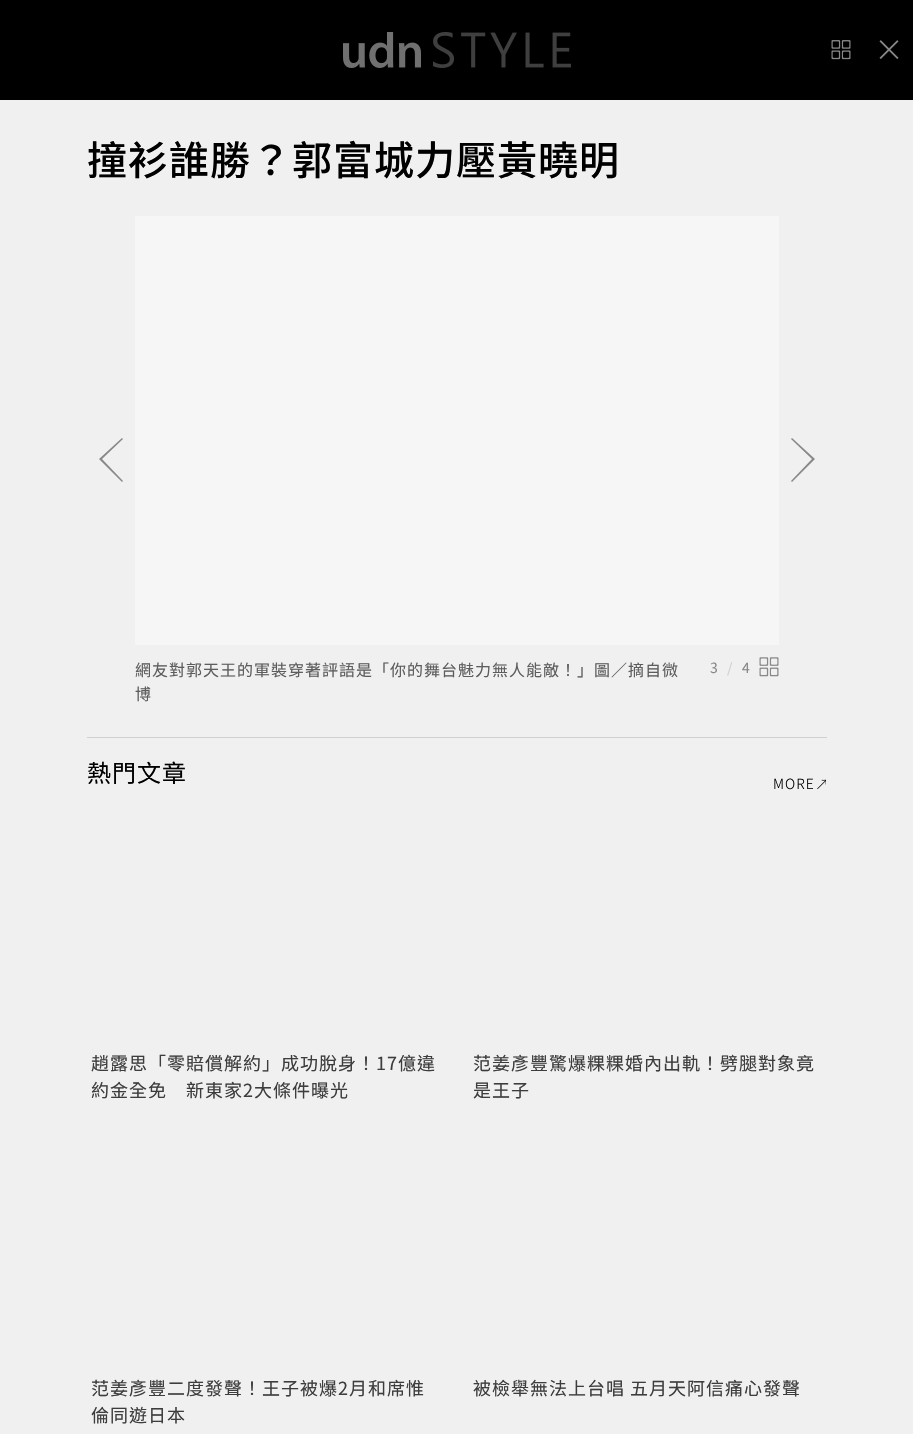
static SkFont makeFont(const char* family, int weight, float size, bool italic = false) {
  SkFontStyle style(weight, SkFontStyle::kNormal_Width,
    italic ? SkFontStyle::kItalic_Slant : SkFontStyle::kUpright_Slant);
  SkFont result(fontMgr->matchFamilyStyle(family, style), size);
  result.setSubpixel(true);
  return result;
}

static void spacedText(SkCanvas* c, const char* s, float x, float y, const SkFont& font, const SkPaint& ink, float letter, float word) {
  std::vector<SkGlyphID> glyphs(font.countText(s, strlen(s), SkTextEncoding::kUTF8));
  std::vector<float> xs(glyphs.size());
  font.textToGlyphs(s, strlen(s), SkTextEncoding::kUTF8, glyphs);
  font.getXPos(glyphs, xs, x);
  float extra = 0;
  for (size_t i = 0; i < glyphs.size(); i++) {
    xs[i] += extra;
    extra += letter + word * (glyphs[i] == font.unicharToGlyph(' '));
  }
  c->drawTextBlob(SkTextBlob::MakeFromPosHGlyphs(glyphs, xs, y, font), 0, 0, ink);
}

static void box(SkCanvas* c, float l, float t, float r, float b, SkColor color) {
  SkPaint ink(SkColor4f::FromColor(color));
  ink.setAntiAlias(true);
  c->drawRect(SkRect::MakeLTRB(l, t, r, b), ink);
}

static void picture(SkCanvas* c, const char* path, float l, float t, float r, float b) {
  auto image = SkImages::DeferredFromEncodedData(SkData::MakeFromFileName(path));
  c->drawImageRect(image, SkRect::MakeLTRB(l, t, r, b), SkSamplingOptions());
}

void draw(SkCanvas* c) {
  SkPaint paint;
  paint.setAntiAlias(true);
  c->clear(0xfff0f0f0);
  box(c, 0, 0, 913, 100, 0xff000000);
  picture(c, "img_01.png", 343, 32, 421, 68);
  picture(c, "img_02.png", 433, 32, 571, 68);
  picture(c, "img_03.png", 831, 40, 851, 60);
  picture(c, "img_04.png", 879, 40, 899, 59);
  SkFont face1 = makeFont("Noto Sans TC", 500, 40);
  paint.setColor(0xff000000);
  spacedText(c, "撞衫誰勝？郭富城力壓黃曉明", 87, 175, face1, paint, 1, 0);
  paint.setColor(0xff888888);
  c->drawPath(SkPathBuilder().moveTo(122, 482).lineTo(99, 459).lineTo(122, 438).lineTo(123, 439).lineTo(102, 459).lineTo(123, 481).close().detach(), paint);
  c->drawPath(SkPathBuilder().moveTo(792, 482).lineTo(791, 481).lineTo(812, 459).lineTo(791, 439).lineTo(792, 438).lineTo(815, 459).close().detach(), paint);
  box(c, 135, 216, 779, 645, 0xfff6f6f6);
  SkFont face2 = makeFont("Noto Sans TC", 400, 16);
  paint.setColor(0xff5d5d5d);
  spacedText(c, "網友對郭天王的軍裝穿著評語是「你的舞台魅力無人能敵！」圖／摘自微", 135, 676, face2, paint, 1, 0);
  spacedText(c, "博", 135, 700, face2, paint, 1, 0);
  SkFont face3 = makeFont("Noto Sans TC", 400, 14);
  paint.setColor(0xff888888);
  spacedText(c, "3", 710, 673, face3, paint, 1, 0);
  paint.setColor(0xffd1d1d1);
  spacedText(c, "/", 727, 673, face3, paint, 1, 0);
  paint.setColor(0xff888888);
  spacedText(c, "4", 742, 673, face3, paint, 1, 0);
  picture(c, "img_05.png", 759, 657, 779, 677);
  box(c, 87, 737, 827, 738, 0xffd1d1d1);
  SkFont face4 = makeFont("Noto Sans TC", 400, 24);
  paint.setColor(0xff000000);
  spacedText(c, "熱門文章", 87, 782, face4, paint, 1, 0);
  SkFont face5 = makeFont("Noto Sans TC", 300, 14);
  spacedText(c, "MORE", 773, 789, face5, paint, 1, 0);
  picture(c, "img_06.png", 817, 779, 826, 789);
  SkFont face6 = makeFont("Noto Sans TC", 400, 18);
  paint.setColor(0xff3d3d3d);
  spacedText(c, "趙露思「零賠償解約」成功脫身！17億違", 91, 1070, face6, paint, 1, 0);
  spacedText(c, "約金全免　新東家2大條件曝光", 91, 1097, face6, paint, 1, 0);
  spacedText(c, "范姜彥豐驚爆粿粿婚內出軌！劈腿對象竟", 473, 1070, face6, paint, 1, 0);
  spacedText(c, "是王子", 473, 1097, face6, paint, 1, 0);
  spacedText(c, "范姜彥豐二度發聲！王子被爆2月和席惟", 91, 1395, face6, paint, 1, 0);
  spacedText(c, "倫同遊日本", 91, 1422, face6, paint, 1, 0);
  spacedText(c, "被檢舉無法上台唱 五月天阿信痛心發聲", 473, 1395, face6, paint, 1, 0);
}
